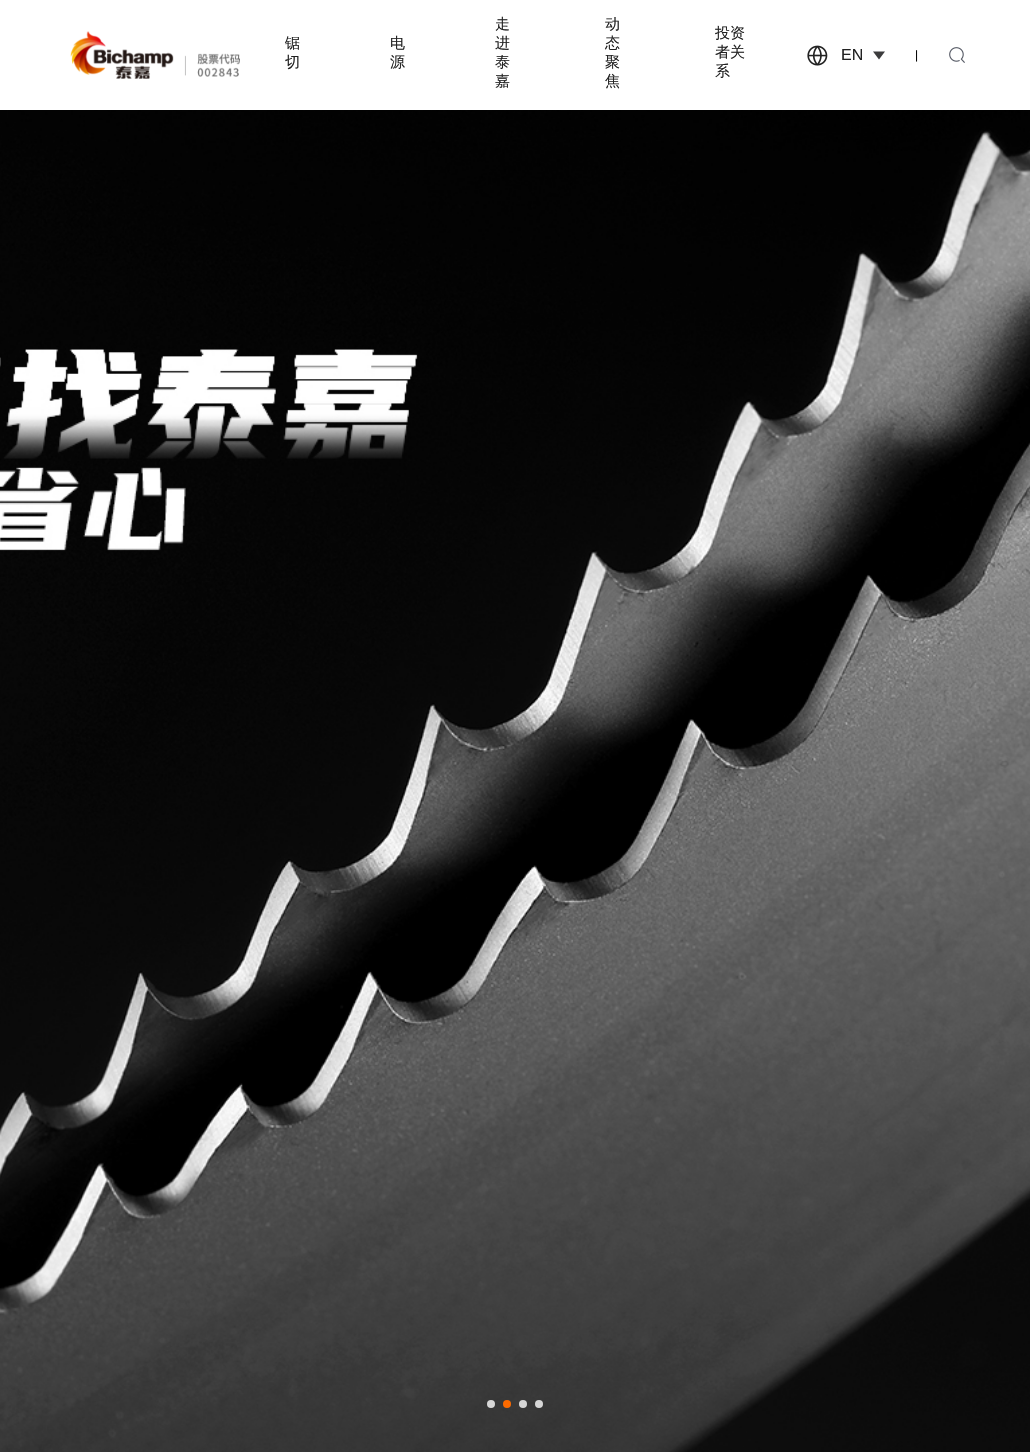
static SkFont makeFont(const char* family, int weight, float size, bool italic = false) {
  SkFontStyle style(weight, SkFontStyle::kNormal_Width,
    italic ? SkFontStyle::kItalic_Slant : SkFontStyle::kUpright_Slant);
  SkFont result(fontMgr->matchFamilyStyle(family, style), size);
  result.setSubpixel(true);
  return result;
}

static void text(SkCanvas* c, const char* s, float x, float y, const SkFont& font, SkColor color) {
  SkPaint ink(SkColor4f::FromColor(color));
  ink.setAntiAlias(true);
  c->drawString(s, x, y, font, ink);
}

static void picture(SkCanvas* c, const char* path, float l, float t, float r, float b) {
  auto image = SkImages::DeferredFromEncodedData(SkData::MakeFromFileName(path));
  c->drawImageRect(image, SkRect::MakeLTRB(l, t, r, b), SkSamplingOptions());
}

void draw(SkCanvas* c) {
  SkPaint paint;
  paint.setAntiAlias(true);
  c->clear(0xffffffff);
  picture(c, "img_01.png", 70, 31, 240, 79);
  SkFont face1 = makeFont("WenQuanYi Zen Hei", 500, 15);
  text(c, "锯", 285, 48, face1, 0xff222222);
  text(c, "切", 285, 67, face1, 0xff222222);
  text(c, "电", 390, 48, face1, 0xff222222);
  text(c, "源", 390, 67, face1, 0xff222222);
  text(c, "走", 495, 29, face1, 0xff222222);
  text(c, "进", 495, 48, face1, 0xff222222);
  text(c, "泰", 495, 67, face1, 0xff222222);
  text(c, "嘉", 495, 86, face1, 0xff222222);
  text(c, "动", 605, 29, face1, 0xff222222);
  text(c, "态", 605, 48, face1, 0xff222222);
  text(c, "聚", 605, 67, face1, 0xff222222);
  text(c, "焦", 605, 86, face1, 0xff222222);
  text(c, "投资", 715, 38, face1, 0xff222222);
  text(c, "者关", 715, 57, face1, 0xff222222);
  text(c, "系", 715, 76, face1, 0xff222222);
  picture(c, "img_02.png", 807, 45, 828, 66);
  SkFont face2 = makeFont("Liberation Sans", 400, 16);
  text(c, "EN", 841, 60, face2, 0xff222222);
  paint.setColor(0xff3c3c3d);
  c->drawPath(SkPathBuilder().moveTo(879, 59.5f).lineTo(873, 51.5f).lineTo(885, 51.5f).close().detach(), paint);
  SkFont face3 = makeFont("Liberation Sans", 400, 12);
  text(c, "|", 915, 59, face3, 0xff000000);
  picture(c, "img_03.png", 949, 47, 965, 63);
  picture(c, "img_04.png", 0, 110, 1030, 1452);
  paint.setColor(0xffd7d7d7);
  c->drawCircle(491, 1404, 4, paint);
  paint.setColor(0xfffc6a00);
  c->drawCircle(507, 1404, 4, paint);
  paint.setColor(0xffd7d7d7);
  c->drawCircle(523, 1404, 4, paint);
  c->drawCircle(539, 1404, 4, paint);
}
